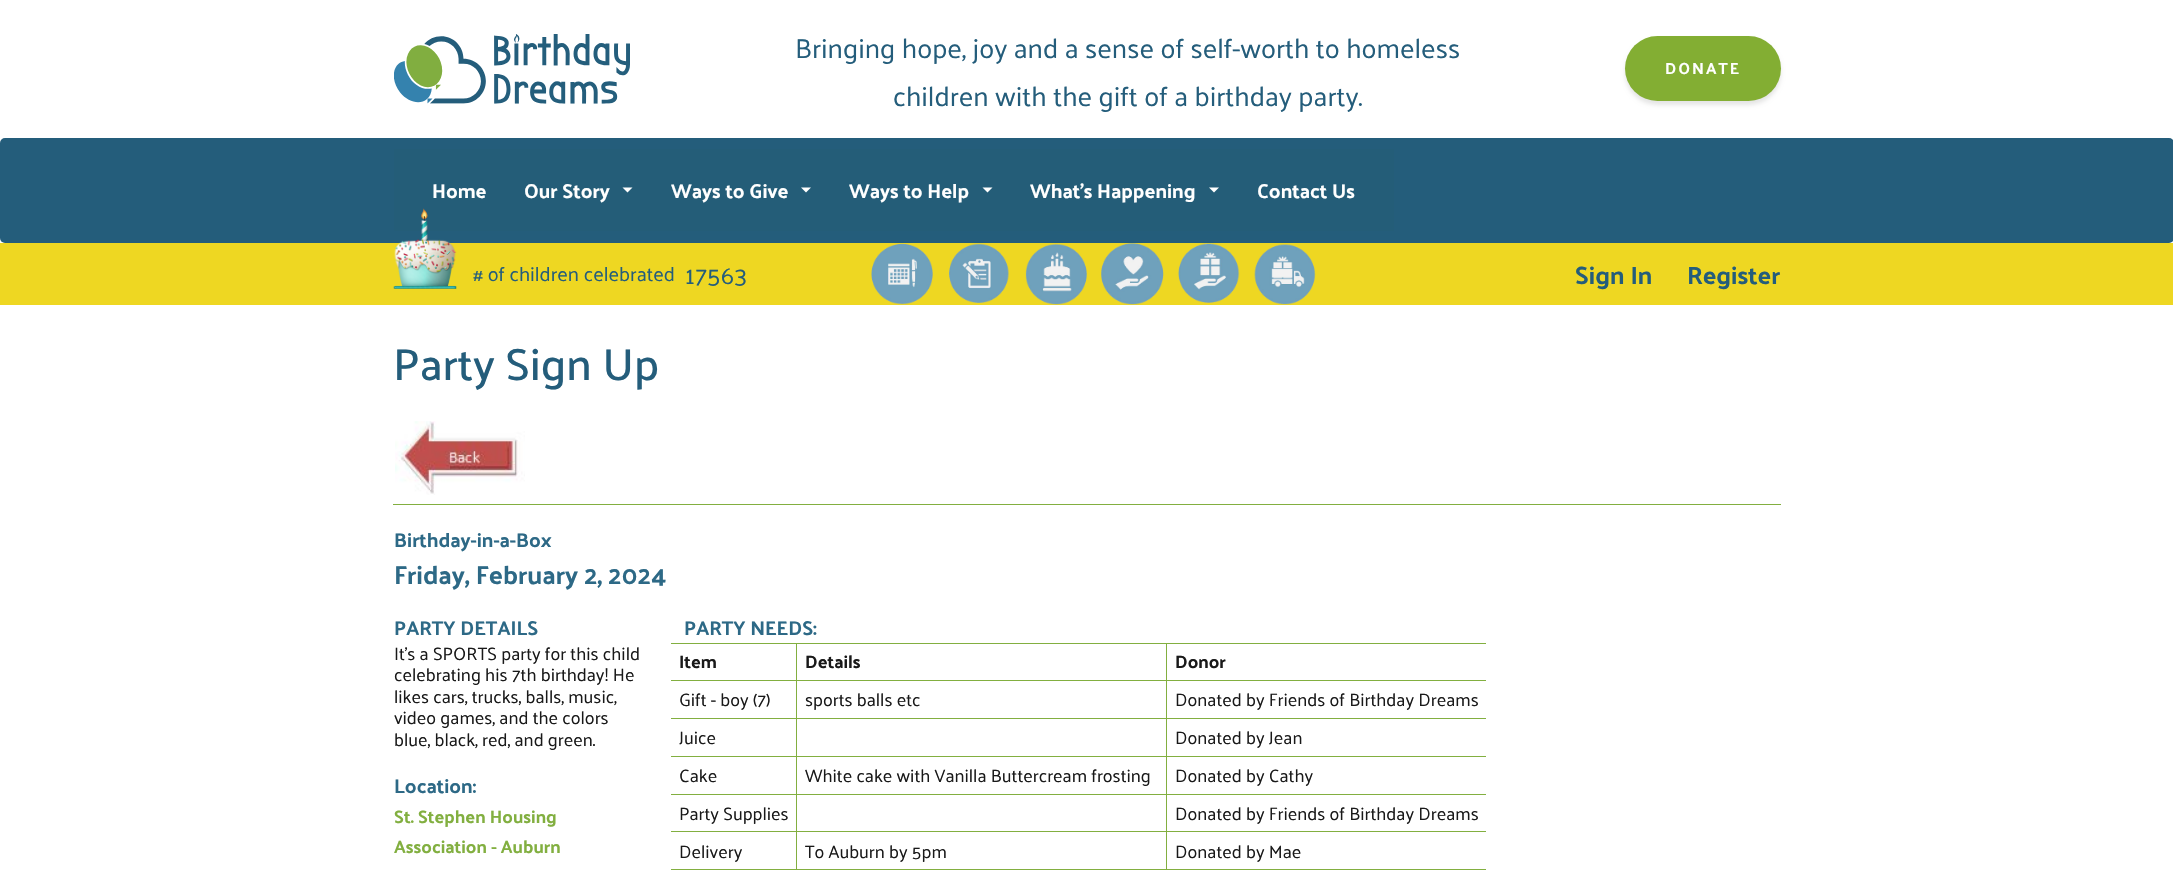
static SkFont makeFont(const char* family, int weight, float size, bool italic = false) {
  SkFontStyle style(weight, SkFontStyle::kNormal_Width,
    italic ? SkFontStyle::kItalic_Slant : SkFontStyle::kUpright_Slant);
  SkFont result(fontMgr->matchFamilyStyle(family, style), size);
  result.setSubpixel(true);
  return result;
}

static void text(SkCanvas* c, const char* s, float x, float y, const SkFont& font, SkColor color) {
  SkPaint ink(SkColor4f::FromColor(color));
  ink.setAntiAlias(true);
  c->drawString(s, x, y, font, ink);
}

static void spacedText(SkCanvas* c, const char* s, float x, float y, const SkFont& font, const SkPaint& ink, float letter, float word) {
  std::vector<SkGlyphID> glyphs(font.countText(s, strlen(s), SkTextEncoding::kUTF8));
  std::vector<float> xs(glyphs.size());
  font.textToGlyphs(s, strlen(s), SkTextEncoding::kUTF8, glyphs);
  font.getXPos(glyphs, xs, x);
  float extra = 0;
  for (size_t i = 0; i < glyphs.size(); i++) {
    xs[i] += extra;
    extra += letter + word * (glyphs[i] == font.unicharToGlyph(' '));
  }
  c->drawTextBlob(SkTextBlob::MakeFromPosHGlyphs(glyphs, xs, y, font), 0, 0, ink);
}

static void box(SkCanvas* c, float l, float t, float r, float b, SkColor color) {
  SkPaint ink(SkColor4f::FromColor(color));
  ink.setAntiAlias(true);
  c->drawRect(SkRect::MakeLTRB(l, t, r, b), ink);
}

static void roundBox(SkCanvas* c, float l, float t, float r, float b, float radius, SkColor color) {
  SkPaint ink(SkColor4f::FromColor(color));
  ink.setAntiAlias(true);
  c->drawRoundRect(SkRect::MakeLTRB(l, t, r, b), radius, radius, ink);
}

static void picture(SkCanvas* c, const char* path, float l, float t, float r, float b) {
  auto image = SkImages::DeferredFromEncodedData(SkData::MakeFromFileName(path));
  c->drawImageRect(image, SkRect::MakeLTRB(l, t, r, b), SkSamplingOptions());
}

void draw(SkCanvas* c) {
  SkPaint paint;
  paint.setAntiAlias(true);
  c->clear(0xffffffff);
  picture(c, "img_01.png", 394, 34, 630, 104);
  SkFont face1 = makeFont("Palanquin", 400, 27.5f);
  text(c, "Bringing hope, joy and a sense of self-worth to homeless", 795, 58, face1, 0xff245d7b);
  text(c, "children with the gift of a birthday party.", 893, 106, face1, 0xff245d7b);
  paint.setColor(0x1a000000);
  paint.setMaskFilter(SkMaskFilter::MakeBlur(kNormal_SkBlurStyle, 2));
  c->drawRoundRect(SkRect::MakeLTRB(1625, 40, 1781, 105), 32.5f, 32.5f, paint);
  paint.setMaskFilter(nullptr);
  roundBox(c, 1625, 36, 1781, 101, 32.5f, 0xff83ae33);
  SkFont face2 = makeFont("Palanquin", 700, 16);
  paint.setColor(0xffffffff);
  spacedText(c, "DONATE", 1665, 74, face2, paint, 2, 0);
  roundBox(c, 0, 138, 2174, 243, 5, 0xff245d7b);
  box(c, 394, 149, 1394, 231, 0xff245d78);
  SkFont face3 = makeFont("Palanquin", 700, 20);
  text(c, "Home", 432, 198, face3, 0xffffffff);
  text(c, "Our Story", 524, 198, face3, 0xffffffff);
  c->drawPath(SkPathBuilder().moveTo(622.5f, 187.5f).lineTo(632.5f, 187.5f).lineTo(627.5f, 192.5f).close().detach(), paint);
  text(c, "Ways to Give", 671, 198, face3, 0xffffffff);
  c->drawPath(SkPathBuilder().moveTo(801, 187.5f).lineTo(811, 187.5f).lineTo(806, 192.5f).close().detach(), paint);
  text(c, "Ways to Help", 849, 198, face3, 0xffffffff);
  c->drawPath(SkPathBuilder().moveTo(982.5f, 187.5f).lineTo(992.5f, 187.5f).lineTo(987.5f, 192.5f).close().detach(), paint);
  text(c, "What's Happening", 1030, 198, face3, 0xffffffff);
  c->drawPath(SkPathBuilder().moveTo(1209, 187.5f).lineTo(1219, 187.5f).lineTo(1214, 192.5f).close().detach(), paint);
  text(c, "Contact Us", 1257, 198, face3, 0xffffffff);
  box(c, 0, 243, 2173, 305, 0xffeed722);
  picture(c, "img_02.png", 393, 208, 457, 289);
  SkFont face4 = makeFont("Palanquin", 400, 20);
  text(c, "# of children celebrated", 473, 281, face4, 0xff245d7b);
  SkFont face5 = makeFont("Palanquin", 400, 25);
  text(c, "17563", 685, 284, face5, 0xff245d7b);
  picture(c, "img_03.png", 871, 243, 933, 305);
  picture(c, "img_04.png", 949, 243, 1009, 303);
  picture(c, "img_05.png", 1025, 243, 1087, 305);
  picture(c, "img_06.png", 1101, 243, 1164, 305);
  picture(c, "img_07.png", 1178, 243, 1240, 303);
  picture(c, "img_08.png", 1254, 244, 1316, 305);
  SkFont face6 = makeFont("Palanquin", 700, 25);
  text(c, "Sign In", 1575, 284, face6, 0xff245d7b);
  text(c, "Register", 1687, 284, face6, 0xff245d7b);
  SkFont face7 = makeFont("Palanquin", 500, 45);
  text(c, "Party Sign Up", 393, 380, face7, 0xff245d7b);
  picture(c, "img_09.png", 395, 421, 525, 495);
  box(c, 393, 504, 1781, 505, 0xff82af40);
  text(c, "Birthday-in-a-Box", 394, 547, face3, 0xff2d6986);
  SkFont face8 = makeFont("Palanquin", 700, 26);
  text(c, "Friday, February 2, 2024", 394, 584, face8, 0xff2d6986);
  text(c, "PARTY DETAILS", 394, 635, face3, 0xff2d6986);
  SkFont face9 = makeFont("Palanquin", 400, 18);
  text(c, "It's a SPORTS party for this child", 394, 660, face9, 0xff191919);
  text(c, "celebrating his 7th birthday! He", 394, 681, face9, 0xff191919);
  text(c, "likes cars, trucks, balls, music,", 394, 703, face9, 0xff191919);
  text(c, "video games, and the colors", 394, 724, face9, 0xff191919);
  text(c, "blue, black, red, and green.", 394, 746, face9, 0xff191919);
  text(c, "Location:", 394, 793, face3, 0xff2d6986);
  SkFont face10 = makeFont("Palanquin", 700, 18);
  text(c, "St. Stephen Housing", 394, 823, face10, 0xff82af40);
  text(c, "Association - Auburn", 394, 853, face10, 0xff82af40);
  text(c, "PARTY NEEDS:", 684, 635, face3, 0xff2d6986);
  box(c, 671, 869, 1486, 870, 0xff82af40);
  box(c, 671, 643, 1486, 644, 0xff82af40);
  box(c, 671, 680, 1486, 681, 0xff82af40);
  box(c, 671, 718, 1486, 719, 0xff82af40);
  box(c, 671, 756, 1486, 757, 0xff82af40);
  box(c, 671, 794, 1486, 795, 0xff82af40);
  box(c, 671, 831, 1486, 832, 0xff82af40);
  box(c, 796, 831, 797, 870, 0xff82af40);
  box(c, 796, 794, 797, 833, 0xff82af40);
  box(c, 796, 756, 797, 795, 0xff82af40);
  box(c, 796, 718, 797, 758, 0xff82af40);
  box(c, 796, 680, 797, 719, 0xff82af40);
  box(c, 796, 643, 797, 681, 0xff82af40);
  text(c, "Item", 679, 668, face10, 0xff191919);
  box(c, 1166, 831, 1167, 870, 0xff82af40);
  box(c, 1166, 794, 1167, 833, 0xff82af40);
  box(c, 1166, 756, 1167, 795, 0xff82af40);
  box(c, 1166, 718, 1167, 758, 0xff82af40);
  box(c, 1166, 680, 1167, 719, 0xff82af40);
  box(c, 1166, 643, 1167, 681, 0xff82af40);
  text(c, "Details", 805, 668, face10, 0xff191919);
  text(c, "Donor", 1175, 668, face10, 0xff191919);
  text(c, "Gift - boy (7)", 679, 706, face9, 0xff191919);
  text(c, "sports balls etc", 805, 706, face9, 0xff191919);
  text(c, "Donated by Friends of Birthday Dreams", 1175, 706, face9, 0xff191919);
  text(c, "Juice", 679, 744, face9, 0xff191919);
  text(c, "Donated by Jean", 1175, 744, face9, 0xff191919);
  text(c, "Cake", 679, 782, face9, 0xff191919);
  text(c, "White cake with Vanilla Buttercream frosting", 805, 782, face9, 0xff191919);
  text(c, "Donated by Cathy", 1175, 782, face9, 0xff191919);
  text(c, "Party Supplies", 679, 820, face9, 0xff191919);
  text(c, "Donated by Friends of Birthday Dreams", 1175, 820, face9, 0xff191919);
  text(c, "Delivery", 679, 858, face9, 0xff191919);
  text(c, "To Auburn by 5pm", 805, 858, face9, 0xff191919);
  text(c, "Donated by Mae", 1175, 858, face9, 0xff191919);
}
